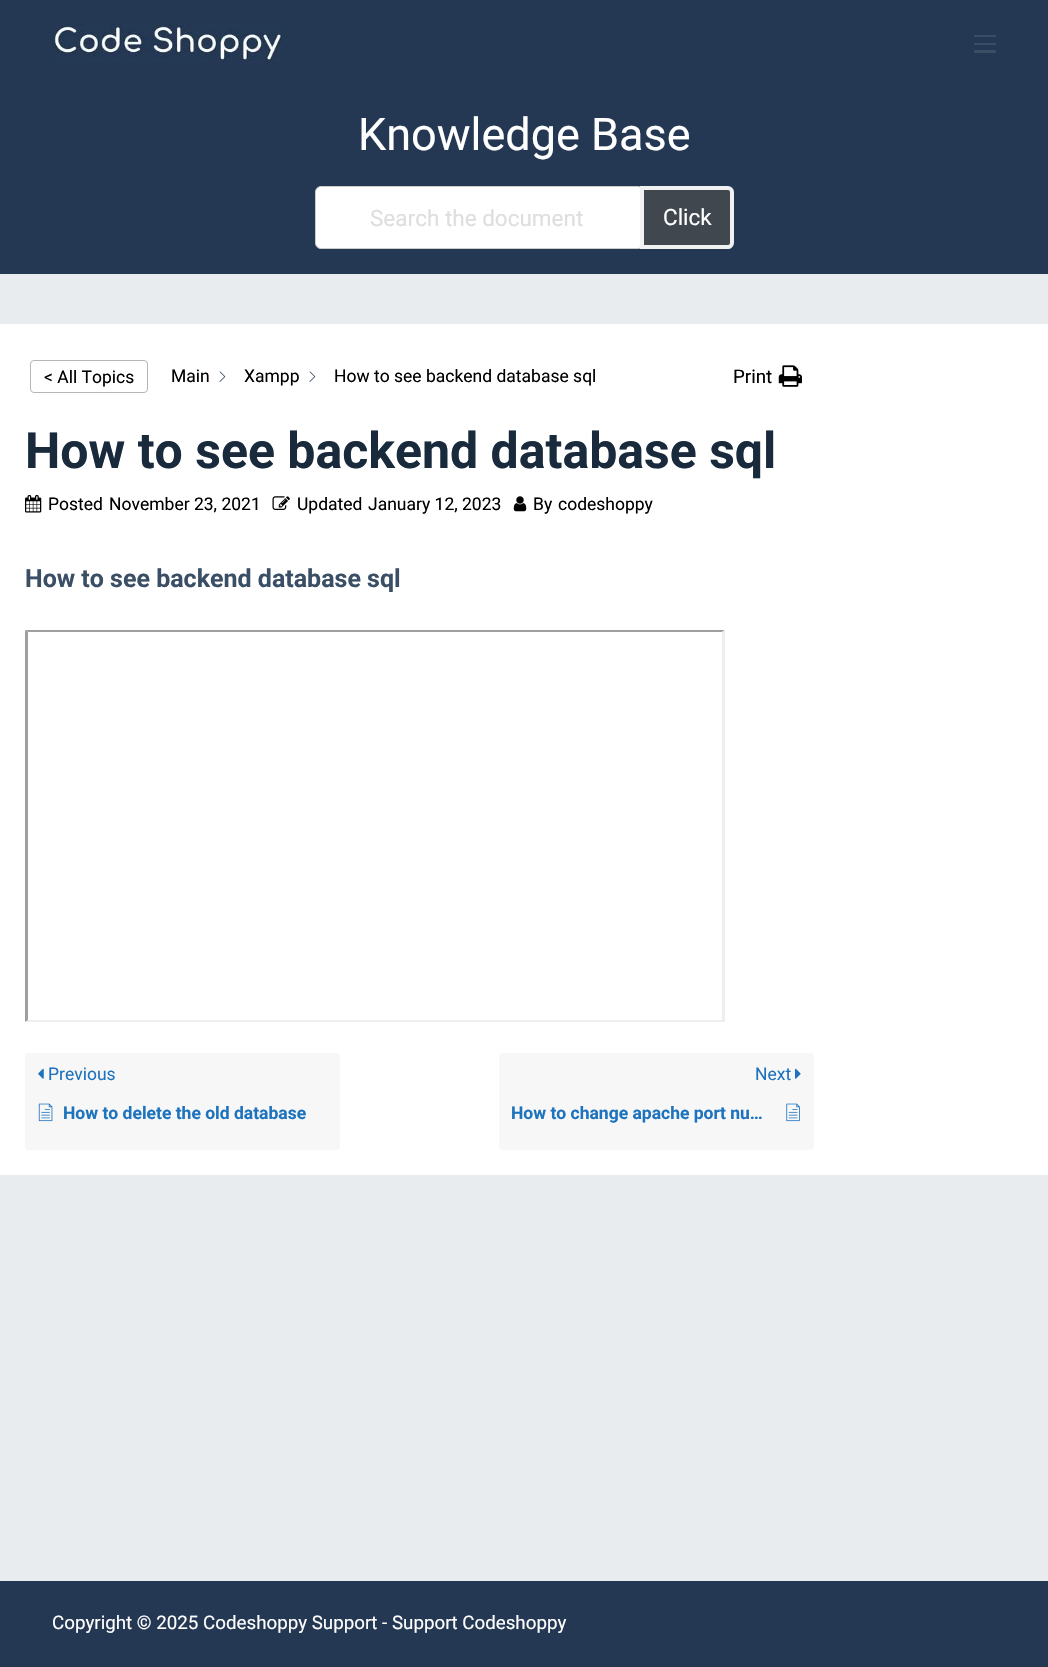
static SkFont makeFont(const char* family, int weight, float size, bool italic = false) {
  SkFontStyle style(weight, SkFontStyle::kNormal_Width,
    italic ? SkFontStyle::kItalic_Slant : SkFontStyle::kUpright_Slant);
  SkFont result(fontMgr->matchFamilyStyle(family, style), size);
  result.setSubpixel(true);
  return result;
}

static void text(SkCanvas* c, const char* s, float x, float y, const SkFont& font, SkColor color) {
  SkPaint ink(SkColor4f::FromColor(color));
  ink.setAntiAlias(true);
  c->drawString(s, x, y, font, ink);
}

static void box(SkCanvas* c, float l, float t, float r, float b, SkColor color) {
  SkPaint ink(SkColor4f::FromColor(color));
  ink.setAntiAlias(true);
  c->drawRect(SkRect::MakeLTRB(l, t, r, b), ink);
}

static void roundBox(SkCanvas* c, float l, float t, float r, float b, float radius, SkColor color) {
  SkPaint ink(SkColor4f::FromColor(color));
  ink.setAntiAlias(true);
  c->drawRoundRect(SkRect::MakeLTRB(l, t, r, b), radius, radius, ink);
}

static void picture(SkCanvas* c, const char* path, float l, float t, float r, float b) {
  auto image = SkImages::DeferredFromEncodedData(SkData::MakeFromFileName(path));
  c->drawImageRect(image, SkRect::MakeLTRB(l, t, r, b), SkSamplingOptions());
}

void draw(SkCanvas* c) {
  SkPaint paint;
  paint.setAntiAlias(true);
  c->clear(0xffe9ecef);
  box(c, 0, 0, 1048, 274, 0xff243853);
  picture(c, "img_01.png", 52, 24, 283, 64);
  roundBox(c, 974, 35, 996, 37, 1, 0xff3a4f66);
  roundBox(c, 974, 43, 996, 45, 1, 0xff3a4f66);
  roundBox(c, 974, 50, 996, 53, 1.5f, 0xff3a4f66);
  SkFont face1 = makeFont("Roboto", 400, 45);
  text(c, "Knowledge Base", 358, 150, face1, 0xffffffff);
  paint.setColor(0xffffffff);
  c->drawRoundRect(SkRect::MakeLTRB(315.5f, 186.5f, 643.5f, 248.5f), 5.5f, 5.5f, paint);
  paint.setStyle(SkPaint::kStroke_Style);
  paint.setStrokeWidth(1);
  paint.setColor(0xffcccccc);
  c->drawRoundRect(SkRect::MakeLTRB(315.5f, 186.5f, 643.5f, 248.5f), 5.5f, 5.5f, paint);
  SkFont face2 = makeFont("Roboto", 400, 22.5f);
  text(c, "Search the document", 370, 226, face2, 0xffdfdddd);
  paint.setStyle(SkPaint::kFill_Style);
  paint.setColor(0xff40474f);
  c->drawPath(SkPathBuilder().moveTo(642, 188).lineTo(728, 188).cubicTo(730, 188, 732, 190, 732, 192).lineTo(732, 243).cubicTo(732, 245, 730, 247, 728, 247).lineTo(642, 247).close().detach(), paint);
  paint.setStyle(SkPaint::kStroke_Style);
  paint.setStrokeWidth(4);
  paint.setColor(0xfff1f1f1);
  c->drawPath(SkPathBuilder().moveTo(642, 188).lineTo(728, 188).cubicTo(730, 188, 732, 190, 732, 192).lineTo(732, 243).cubicTo(732, 245, 730, 247, 728, 247).lineTo(642, 247).close().detach(), paint);
  text(c, "Click", 663, 225, face2, 0xffffffff);
  box(c, 0, 324, 1048, 1175, 0xffffffff);
  paint.setStrokeWidth(1);
  paint.setColor(0xffb5b5b5);
  c->drawRoundRect(SkRect::MakeLTRB(30.5f, 360.5f, 147.5f, 392.5f), 3.5f, 3.5f, paint);
  SkFont face3 = makeFont("Roboto", 400, 17.5f);
  text(c, "< All Topics", 44, 383, face3, 0xff000000);
  text(c, "Main", 171, 382, face3, 0xff000000);
  picture(c, "img_02.png", 219, 371, 226, 382);
  text(c, "Xampp", 244, 382, face3, 0xff000000);
  picture(c, "img_02.png", 309, 371, 316, 382);
  text(c, "How to see backend database sql", 334, 382, face3, 0xff000000);
  SkFont face4 = makeFont("Roboto", 400, 18.75f);
  text(c, "Print", 733, 383, face4, 0xff000000);
  picture(c, "img_03.png", 778, 365, 802, 387);
  SkFont face5 = makeFont("Roboto", 700, 50);
  text(c, "How to see backend database sql", 25, 468, face5, 0xff192a3d);
  picture(c, "img_04.png", 25, 495, 42, 513);
  text(c, "Posted", 48, 510, face3, 0xff000000);
  text(c, "November 23, 2021", 109, 510, face3, 0xff000000);
  picture(c, "img_05.png", 272, 496, 290, 510);
  text(c, "Updated", 297, 510, face3, 0xff000000);
  text(c, "January 12, 2023", 368, 510, face3, 0xff000000);
  picture(c, "img_06.png", 513, 496, 527, 512);
  text(c, "By", 533, 510, face3, 0xff000000);
  text(c, "codeshoppy", 558, 510, face3, 0xff000000);
  SkFont face6 = makeFont("Roboto", 700, 25);
  text(c, "How to see backend database sql", 25, 587, face6, 0xff3a4f66);
  paint.setStyle(SkPaint::kFill_Style);
  paint.setColor(0xff9f9f9f);
  c->drawPath(SkPathBuilder().moveTo(25, 630).lineTo(725, 630).lineTo(722, 632).lineTo(28, 632).close().detach(), paint);
  paint.setColor(0xffeeeeee);
  c->drawPath(SkPathBuilder().moveTo(725, 630).lineTo(725, 1022).lineTo(722, 1020).lineTo(722, 632).close().detach(), paint);
  c->drawPath(SkPathBuilder().moveTo(725, 1022).lineTo(25, 1022).lineTo(28, 1020).lineTo(722, 1020).close().detach(), paint);
  paint.setColor(0xff9f9f9f);
  c->drawPath(SkPathBuilder().moveTo(25, 1022).lineTo(25, 630).lineTo(28, 632).lineTo(28, 1020).close().detach(), paint);
  roundBox(c, 25, 1053, 340, 1150, 4, 0xfff7f7f7);
  picture(c, "img_07.png", 38, 1068, 44, 1079);
  text(c, "Previous", 48, 1080, face3, 0xff1e73be);
  picture(c, "img_08.png", 38, 1103, 53, 1122);
  SkFont face7 = makeFont("Roboto", 700, 17.5f);
  text(c, "How to delete the old database", 63, 1119, face7, 0xff1e73be);
  roundBox(c, 499, 1053, 814, 1150, 4, 0xfff7f7f7);
  text(c, "Next", 755, 1080, face3, 0xff1e73be);
  picture(c, "img_09.png", 795, 1068, 801, 1079);
  text(c, "How to change apache port nu…", 511, 1119, face7, 0xff1e73be);
  picture(c, "img_10.png", 786, 1103, 800, 1122);
  box(c, 0, 1581, 1048, 1667, 0xff243853);
  text(c, "Copyright © 2025 Codeshoppy Support - Support Codeshoppy", 52, 1629, face4, 0xffffffff);
}
